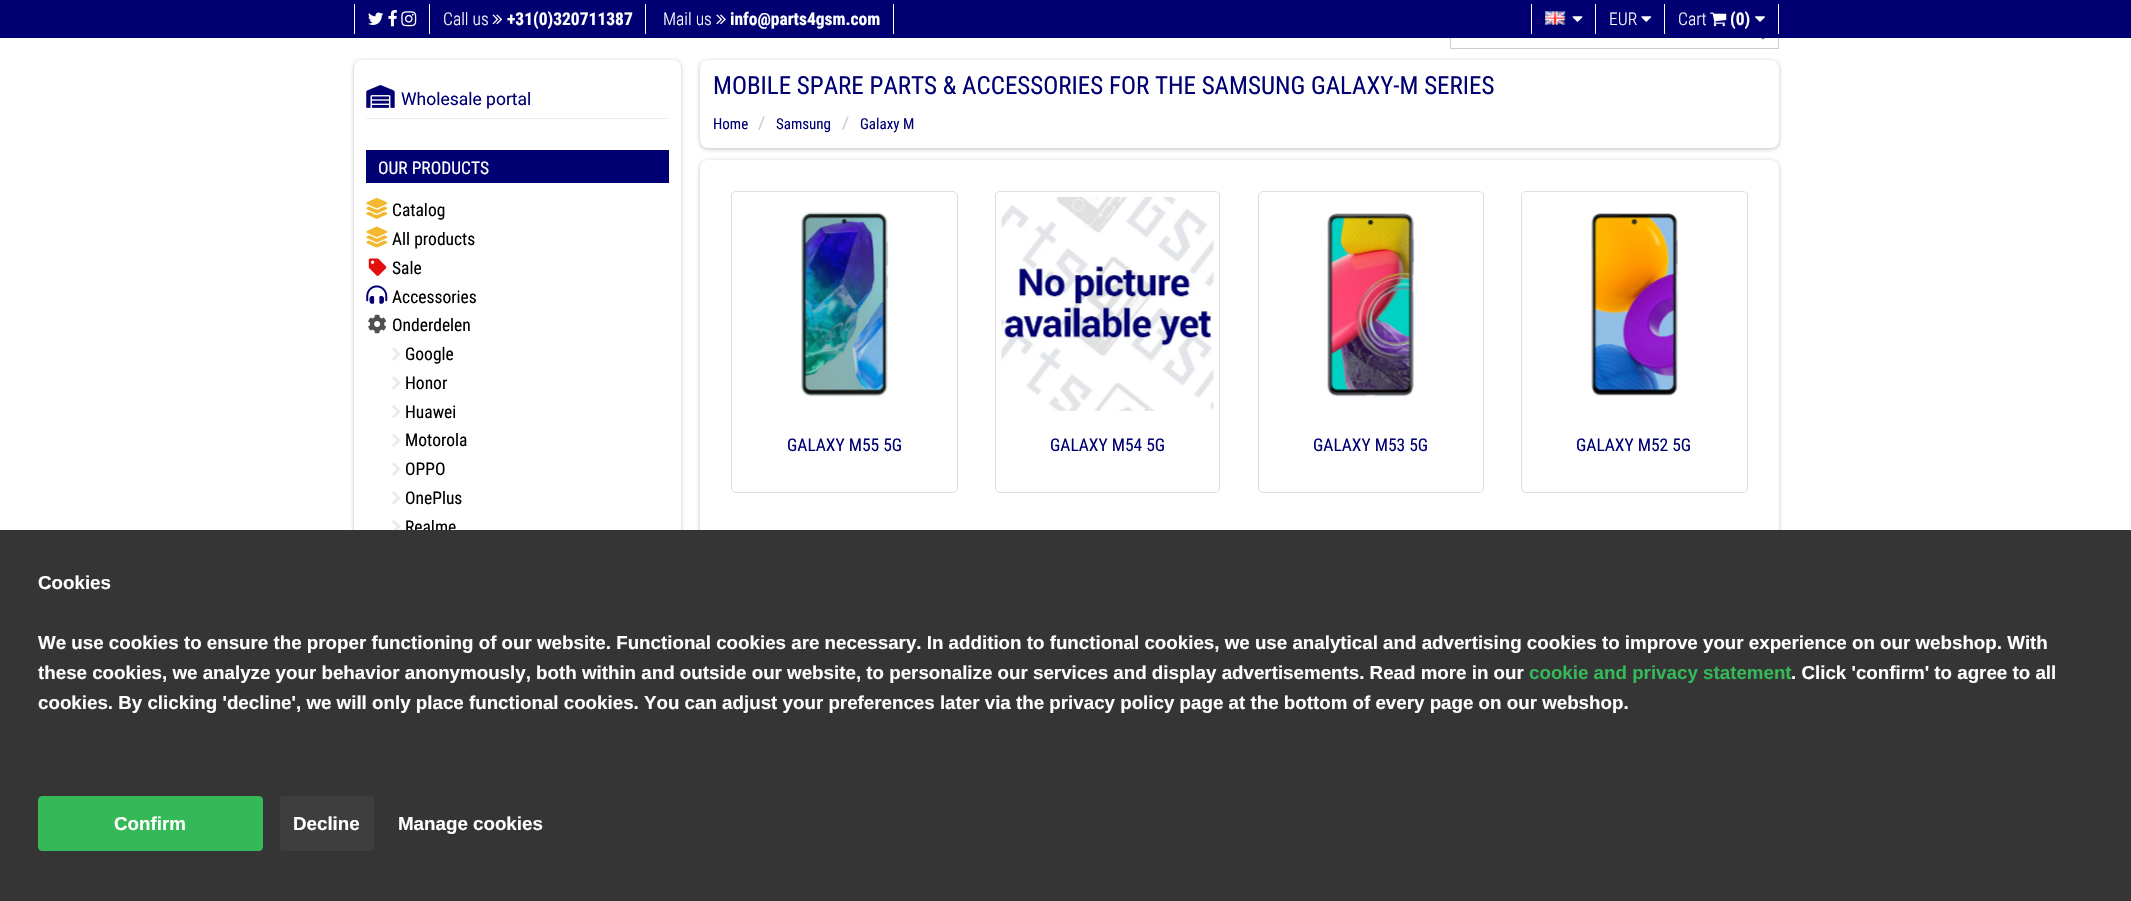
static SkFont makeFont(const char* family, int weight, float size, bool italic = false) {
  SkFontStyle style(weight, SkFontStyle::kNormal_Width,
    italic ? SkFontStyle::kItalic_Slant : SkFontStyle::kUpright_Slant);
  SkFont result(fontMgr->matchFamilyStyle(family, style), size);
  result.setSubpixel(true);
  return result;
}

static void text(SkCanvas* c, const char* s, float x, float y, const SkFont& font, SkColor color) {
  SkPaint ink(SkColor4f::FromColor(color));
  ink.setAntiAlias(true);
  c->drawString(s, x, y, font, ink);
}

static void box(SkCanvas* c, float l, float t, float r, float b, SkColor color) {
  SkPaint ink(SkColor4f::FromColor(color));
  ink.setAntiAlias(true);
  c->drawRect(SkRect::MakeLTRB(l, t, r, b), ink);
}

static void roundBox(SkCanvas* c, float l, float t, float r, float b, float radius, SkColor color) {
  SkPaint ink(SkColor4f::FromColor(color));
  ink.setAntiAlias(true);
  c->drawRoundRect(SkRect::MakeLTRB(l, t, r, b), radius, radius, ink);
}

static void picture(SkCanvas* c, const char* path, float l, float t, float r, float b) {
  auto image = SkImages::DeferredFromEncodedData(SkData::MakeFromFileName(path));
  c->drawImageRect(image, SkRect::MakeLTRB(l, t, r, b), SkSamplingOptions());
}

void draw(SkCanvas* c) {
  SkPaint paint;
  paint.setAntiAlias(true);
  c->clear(0xffffffff);
  paint.setStyle(SkPaint::kStroke_Style);
  paint.setStrokeWidth(1);
  paint.setColor(0xffcccccc);
  c->drawRect(SkRect::MakeLTRB(1450.5f, 9.5f, 1778.5f, 48.5f), paint);
  picture(c, "img_01.png", 1761, 38, 1765, 40);
  box(c, 0, 0, 2131, 38, 0xff000073);
  box(c, 429, 4, 430, 34, 0xffffffff);
  box(c, 354, 4, 355, 34, 0xffffffff);
  picture(c, "img_02.png", 368, 12, 384, 25);
  picture(c, "img_03.png", 388, 10, 397, 27);
  picture(c, "img_04.png", 401, 11, 417, 27);
  box(c, 645, 4, 646, 34, 0xffffffff);
  SkFont face1 = makeFont("Roboto Condensed", 300, 17.5f);
  text(c, "Call us", 443, 25, face1, 0xffffffff);
  picture(c, "img_05.png", 492, 14, 502, 25);
  SkFont face2 = makeFont("Roboto Condensed", 700, 17.5f);
  text(c, "+31(0)320711387", 507, 25, face2, 0xffffffff);
  box(c, 893, 4, 894, 34, 0xffffffff);
  text(c, "Mail us", 663, 25, face1, 0xffffffff);
  picture(c, "img_06.png", 716, 14, 726, 25);
  text(c, "info@parts4gsm.com", 730, 25, face2, 0xffffffff);
  box(c, 1595, 4, 1596, 34, 0xffffffff);
  box(c, 1531, 4, 1532, 34, 0xffffffff);
  picture(c, "img_07.png", 1545, 11, 1566, 25);
  picture(c, "img_08.png", 1572, 16, 1583, 22);
  box(c, 1664, 4, 1665, 34, 0xffffffff);
  text(c, "EUR", 1609, 25, face1, 0xffffffff);
  picture(c, "img_09.png", 1641, 16, 1652, 22);
  box(c, 1778, 4, 1779, 34, 0xffffffff);
  text(c, "Cart", 1678, 25, face1, 0xffffffff);
  picture(c, "img_10.png", 1710, 12, 1727, 27);
  text(c, "(0)", 1730, 25, face2, 0xffffffff);
  picture(c, "img_11.png", 1755, 16, 1765, 22);
  paint.setStyle(SkPaint::kFill_Style);
  paint.setColor(0x40000000);
  paint.setMaskFilter(SkMaskFilter::MakeBlur(kNormal_SkBlurStyle, 2));
  c->drawRoundRect(SkRect::MakeLTRB(354, 61, 681, 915), 8, 8, paint);
  paint.setMaskFilter(nullptr);
  roundBox(c, 354, 60, 681, 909, 8, 0xffffffff);
  box(c, 366, 118, 669, 119, 0xffeeeeee);
  picture(c, "img_12.png", 366, 85, 395, 108);
  SkFont face3 = makeFont("Roboto", 400, 17.5f);
  text(c, "Wholesale portal", 401, 105, face3, 0xff000073);
  box(c, 366, 150, 669, 183, 0xff000073);
  SkFont face4 = makeFont("Roboto Condensed", 400, 17.5f);
  text(c, "OUR PRODUCTS", 378, 174, face4, 0xffffffff);
  picture(c, "img_13.png", 366, 197, 388, 219);
  text(c, "Catalog", 392, 216, face4, 0xff000000);
  picture(c, "img_14.png", 366, 226, 388, 248);
  text(c, "All products", 392, 245, face4, 0xff000000);
  picture(c, "img_15.png", 368, 258, 387, 276);
  text(c, "Sale", 392, 274, face4, 0xff000000);
  picture(c, "img_16.png", 366, 285, 388, 304);
  text(c, "Accessories", 392, 303, face4, 0xff000000);
  picture(c, "img_17.png", 368, 314, 386, 334);
  text(c, "Onderdelen", 392, 331, face4, 0xff000000);
  picture(c, "img_18.png", 392, 347, 401, 361);
  text(c, "Google", 405, 360, face4, 0xff000000);
  picture(c, "img_19.png", 392, 376, 401, 390);
  text(c, "Honor", 405, 389, face4, 0xff000000);
  picture(c, "img_20.png", 392, 405, 401, 418);
  text(c, "Huawei", 405, 418, face4, 0xff000000);
  picture(c, "img_21.png", 392, 434, 401, 447);
  text(c, "Motorola", 405, 446, face4, 0xff000000);
  picture(c, "img_18.png", 392, 462, 401, 476);
  text(c, "OPPO", 405, 475, face4, 0xff000000);
  picture(c, "img_19.png", 392, 491, 401, 505);
  text(c, "OnePlus", 405, 504, face4, 0xff000000);
  picture(c, "img_22.png", 392, 520, 401, 530);
  text(c, "Realme", 405, 533, face4, 0xff000000);
  paint.setMaskFilter(SkMaskFilter::MakeBlur(kNormal_SkBlurStyle, 2));
  c->drawRoundRect(SkRect::MakeLTRB(700, 61, 1779, 149), 8, 8, paint);
  paint.setMaskFilter(nullptr);
  roundBox(c, 700, 60, 1779, 148, 8, 0xffffffff);
  SkFont face5 = makeFont("Roboto Condensed", 400, 25);
  text(c, "MOBILE SPARE PARTS & ACCESSORIES FOR THE SAMSUNG GALAXY-M SERIES", 713, 94, face5, 0xff000073);
  SkFont face6 = makeFont("Roboto Condensed", 400, 15);
  text(c, "Home", 713, 129, face6, 0xff000073);
  text(c, "/", 758, 129, face3, 0xffcccccc);
  text(c, "Samsung", 776, 129, face6, 0xff000073);
  text(c, "/", 842, 129, face3, 0xffcccccc);
  text(c, "Galaxy M", 860, 129, face6, 0xff000073);
  paint.setMaskFilter(SkMaskFilter::MakeBlur(kNormal_SkBlurStyle, 2));
  c->drawRoundRect(SkRect::MakeLTRB(700, 161, 1779, 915), 8, 8, paint);
  paint.setMaskFilter(nullptr);
  roundBox(c, 700, 160, 1779, 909, 8, 0xffffffff);
  paint.setStyle(SkPaint::kStroke_Style);
  paint.setColor(0xffdddddd);
  c->drawRoundRect(SkRect::MakeLTRB(731.5f, 191.5f, 957.5f, 492.5f), 4.5f, 4.5f, paint);
  picture(c, "img_23.png", 801, 212, 889, 397);
  text(c, "GALAXY M55 5G", 787, 451, face4, 0xff000073);
  c->drawRoundRect(SkRect::MakeLTRB(995.5f, 191.5f, 1219.5f, 492.5f), 4.5f, 4.5f, paint);
  picture(c, "img_24.png", 1001, 197, 1214, 411);
  text(c, "GALAXY M54 5G", 1050, 451, face4, 0xff000073);
  c->drawRoundRect(SkRect::MakeLTRB(1258.5f, 191.5f, 1483.5f, 492.5f), 4.5f, 4.5f, paint);
  picture(c, "img_25.png", 1327, 213, 1415, 397);
  text(c, "GALAXY M53 5G", 1313, 451, face4, 0xff000073);
  c->drawRoundRect(SkRect::MakeLTRB(1521.5f, 191.5f, 1747.5f, 492.5f), 4.5f, 4.5f, paint);
  picture(c, "img_26.png", 1591, 213, 1678, 396);
  text(c, "GALAXY M52 5G", 1576, 451, face4, 0xff000073);
  box(c, 0, 530, 2131, 901, 0xff353535);
  SkFont face7 = makeFont("Liberation Sans", 700, 18.75f);
  text(c, "Cookies", 38, 589, face7, 0xffffffff);
  text(c, "We use cookies to ensure the proper functioning of our website. Functional cookies are necessary. In addition to functional cookies, we use analytical and advertising cookies to improve your experience on our webshop. With", 38, 649, face7, 0xffffffff);
  text(c, "these cookies, we analyze your behavior anonymously, both within and outside our website, to personalize our services and display advertisements. Read more in our", 38, 679, face7, 0xffffffff);
  text(c, "cookie and privacy statement", 1529, 679, face7, 0xff35b858);
  text(c, ". Click 'confirm' to agree to all", 1791, 679, face7, 0xffffffff);
  text(c, "cookies. By clicking 'decline', we will only place functional cookies. You can adjust your preferences later via the privacy policy page at the bottom of every page on our webshop.", 38, 709, face7, 0xffffffff);
  paint.setStyle(SkPaint::kFill_Style);
  paint.setColor(0xff35b858);
  c->drawRoundRect(SkRect::MakeLTRB(38.5f, 796.5f, 262.5f, 850.5f), 3.5f, 3.5f, paint);
  paint.setStyle(SkPaint::kStroke_Style);
  c->drawRoundRect(SkRect::MakeLTRB(38.5f, 796.5f, 262.5f, 850.5f), 3.5f, 3.5f, paint);
  text(c, "Confirm", 114, 830, face7, 0xffffffff);
  roundBox(c, 280, 796, 374, 851, 4, 0xff3e3e3e);
  text(c, "Decline", 293, 830, face7, 0xffffffff);
  text(c, "Manage cookies", 398, 830, face7, 0xffffffff);
}
